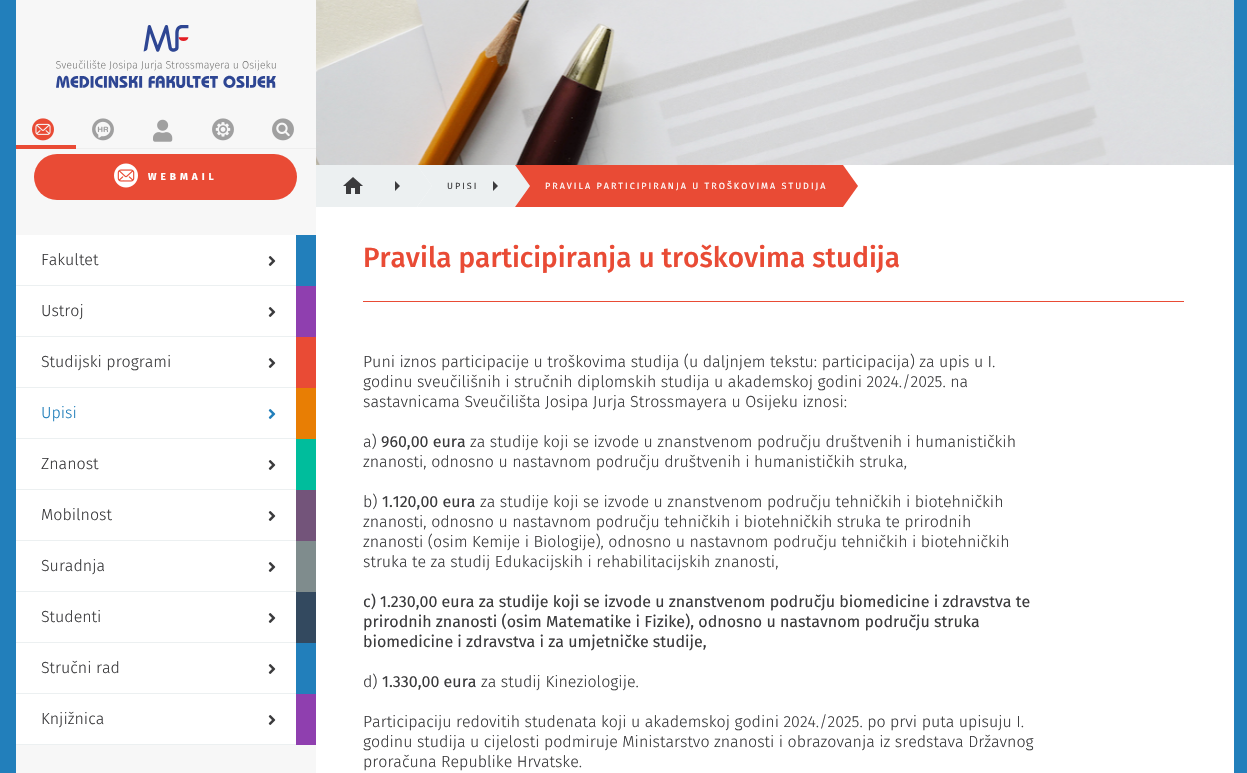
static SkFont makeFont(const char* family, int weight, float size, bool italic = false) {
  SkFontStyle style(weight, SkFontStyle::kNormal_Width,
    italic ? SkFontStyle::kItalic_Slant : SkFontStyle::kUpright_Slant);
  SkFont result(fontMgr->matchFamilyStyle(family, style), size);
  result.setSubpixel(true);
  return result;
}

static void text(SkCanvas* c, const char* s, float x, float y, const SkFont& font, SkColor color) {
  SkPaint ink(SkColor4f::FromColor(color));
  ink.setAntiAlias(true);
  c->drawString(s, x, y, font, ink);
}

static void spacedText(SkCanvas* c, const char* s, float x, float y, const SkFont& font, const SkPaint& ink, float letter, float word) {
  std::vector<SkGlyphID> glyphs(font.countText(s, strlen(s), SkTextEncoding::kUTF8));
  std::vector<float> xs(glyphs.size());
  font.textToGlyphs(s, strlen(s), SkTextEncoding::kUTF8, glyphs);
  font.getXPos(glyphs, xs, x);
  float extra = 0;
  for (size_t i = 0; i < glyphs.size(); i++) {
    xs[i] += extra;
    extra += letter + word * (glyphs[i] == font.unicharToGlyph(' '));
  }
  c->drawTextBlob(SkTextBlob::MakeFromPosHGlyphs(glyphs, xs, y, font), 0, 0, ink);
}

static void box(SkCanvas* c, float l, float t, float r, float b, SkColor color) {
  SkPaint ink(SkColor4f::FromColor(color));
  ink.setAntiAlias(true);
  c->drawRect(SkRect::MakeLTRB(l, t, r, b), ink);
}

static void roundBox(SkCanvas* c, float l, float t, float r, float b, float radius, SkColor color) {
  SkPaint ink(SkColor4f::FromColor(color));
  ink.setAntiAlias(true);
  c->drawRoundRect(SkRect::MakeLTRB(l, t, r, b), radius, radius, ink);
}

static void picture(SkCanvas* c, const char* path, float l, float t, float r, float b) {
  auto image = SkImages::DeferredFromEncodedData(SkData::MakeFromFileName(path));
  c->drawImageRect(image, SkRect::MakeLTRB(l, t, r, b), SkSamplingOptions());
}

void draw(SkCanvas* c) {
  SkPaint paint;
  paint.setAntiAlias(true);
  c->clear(0xff227fbb);
  box(c, 16, 0, 316, 773, 0xfff7f7f7);
  picture(c, "img_01.png", 56, 25, 276, 88);
  picture(c, "img_02.png", 32, 118, 54, 141);
  box(c, 16, 145, 76, 149, 0xffe94b35);
  box(c, 76, 148, 316, 149, 0xffeeeeee);
  picture(c, "img_03.png", 92, 118, 114, 141);
  picture(c, "img_04.png", 153, 119, 173, 142);
  picture(c, "img_05.png", 212, 118, 234, 141);
  picture(c, "img_06.png", 272, 118, 294, 141);
  roundBox(c, 34, 154, 297, 200, 23, 0xffe94b35);
  picture(c, "img_07.png", 114, 163, 138, 188);
  SkFont face1 = makeFont("Fira Sans", 700, 10);
  paint.setColor(0xffffffff);
  spacedText(c, "WEBMAIL", 148, 180, face1, paint, 4, 0);
  box(c, 296, 235, 316, 286, 0xff227fbb);
  box(c, 16, 235, 296, 285, 0xffffffff);
  box(c, 16, 285, 296, 286, 0xffecf0f1);
  SkFont face2 = makeFont("Fira Sans", 300, 16);
  text(c, "Fakultet", 41, 265, face2, 0xff3b3b3d);
  picture(c, "img_08.png", 268, 256, 276, 266);
  box(c, 296, 286, 316, 337, 0xff8f3faf);
  box(c, 16, 286, 296, 336, 0xffffffff);
  box(c, 16, 336, 296, 337, 0xffecf0f1);
  text(c, "Ustroj", 41, 316, face2, 0xff3b3b3d);
  picture(c, "img_08.png", 268, 307, 276, 317);
  box(c, 296, 337, 316, 388, 0xffe94b35);
  box(c, 16, 337, 296, 387, 0xffffffff);
  box(c, 16, 387, 296, 388, 0xffecf0f1);
  text(c, "Studijski programi", 41, 367, face2, 0xff3b3b3d);
  picture(c, "img_08.png", 268, 358, 276, 368);
  box(c, 296, 388, 316, 439, 0xffe87e04);
  box(c, 16, 388, 296, 438, 0xffffffff);
  box(c, 16, 438, 296, 439, 0xffecf0f1);
  text(c, "Upisi", 41, 418, face2, 0xff227fbb);
  picture(c, "img_09.png", 268, 409, 276, 419);
  box(c, 296, 439, 316, 490, 0xff00bd9c);
  box(c, 16, 439, 296, 489, 0xffffffff);
  box(c, 16, 489, 296, 490, 0xffecf0f1);
  text(c, "Znanost", 41, 469, face2, 0xff3b3b3d);
  picture(c, "img_08.png", 268, 460, 276, 470);
  box(c, 296, 490, 316, 541, 0xff73547a);
  box(c, 16, 490, 296, 540, 0xffffffff);
  box(c, 16, 540, 296, 541, 0xffecf0f1);
  text(c, "Mobilnost", 41, 520, face2, 0xff3b3b3d);
  picture(c, "img_08.png", 268, 511, 276, 521);
  box(c, 296, 541, 316, 592, 0xff7f8c8d);
  box(c, 16, 541, 296, 591, 0xffffffff);
  box(c, 16, 591, 296, 592, 0xffecf0f1);
  text(c, "Suradnja", 41, 571, face2, 0xff3b3b3d);
  picture(c, "img_08.png", 268, 562, 276, 572);
  box(c, 296, 592, 316, 643, 0xff33495f);
  box(c, 16, 592, 296, 642, 0xffffffff);
  box(c, 16, 642, 296, 643, 0xffecf0f1);
  text(c, "Studenti", 41, 622, face2, 0xff3b3b3d);
  picture(c, "img_08.png", 268, 613, 276, 623);
  box(c, 296, 643, 316, 694, 0xff227fbb);
  box(c, 16, 643, 296, 693, 0xffffffff);
  box(c, 16, 693, 296, 694, 0xffecf0f1);
  text(c, "Stručni rad", 41, 673, face2, 0xff3b3b3d);
  picture(c, "img_08.png", 268, 664, 276, 674);
  box(c, 296, 694, 316, 745, 0xff8f3faf);
  box(c, 16, 694, 296, 744, 0xffffffff);
  box(c, 16, 744, 296, 745, 0xffecf0f1);
  text(c, "Knjižnica", 41, 724, face2, 0xff3b3b3d);
  picture(c, "img_08.png", 268, 715, 276, 725);
  picture(c, "img_10.png", 316, 0, 1234, 165);
  box(c, 316, 165, 1234, 773, 0xffffffff);
  box(c, 316, 165, 417, 207, 0xffecf0f1);
  picture(c, "img_11.png", 343, 177, 363, 194);
  paint.setColor(0xff3b3b3d);
  c->drawPath(SkPathBuilder().moveTo(395, 191).lineTo(395, 181).lineTo(400, 186).close().detach(), paint);
  paint.setColor(0xffecf0f1);
  c->drawPath(SkPathBuilder().moveTo(417, 207).lineTo(417, 165).lineTo(432, 186).close().detach(), paint);
  box(c, 432, 165, 515, 207, 0xffecf0f1);
  c->drawPath(SkPathBuilder().moveTo(417, 165).lineTo(432, 165).lineTo(432, 186).close().moveTo(432, 207).lineTo(417, 207).lineTo(432, 186).close().detach(), paint);
  SkFont face3 = makeFont("Fira Sans", 400, 9);
  paint.setColor(0xff3b3b3d);
  spacedText(c, "UPISI", 447, 189, face3, paint, 2, 0);
  paint.setColor(0xffecf0f1);
  c->drawPath(SkPathBuilder().moveTo(515, 207).lineTo(515, 165).lineTo(530, 186).close().detach(), paint);
  paint.setColor(0xff3b3b3d);
  c->drawPath(SkPathBuilder().moveTo(493, 191).lineTo(493, 181).lineTo(498, 186).close().detach(), paint);
  box(c, 530, 165, 843, 207, 0xffe94b35);
  paint.setColor(0xffe94b35);
  c->drawPath(SkPathBuilder().moveTo(515, 165).lineTo(530, 165).lineTo(530, 186).close().moveTo(530, 207).lineTo(515, 207).lineTo(530, 186).close().detach(), paint);
  paint.setColor(0xffffffff);
  spacedText(c, "PRAVILA PARTICIPIRANJA U TROŠKOVIMA STUDIJA", 545, 189, face3, paint, 2, 0);
  paint.setColor(0xffe94b35);
  c->drawPath(SkPathBuilder().moveTo(843, 207).lineTo(843, 165).lineTo(858, 186).close().detach(), paint);
  box(c, 363, 301, 1184, 302, 0xffe94b35);
  SkFont face4 = makeFont("Fira Sans", 500, 28);
  text(c, "Pravila participiranja u troškovima studija", 363, 267, face4, 0xffe94b35);
  text(c, "Puni iznos participacije u troškovima studija (u daljnjem tekstu: participacija) za upis u I.", 363, 367, face2, 0xff3b3b3d);
  text(c, "godinu sveučilišnih i stručnih diplomskih studija u akademskoj godini 2024./2025. na", 363, 387, face2, 0xff3b3b3d);
  text(c, "sastavnicama Sveučilišta Josipa Jurja Strossmayera u Osijeku iznosi:", 363, 407, face2, 0xff3b3b3d);
  text(c, "a)", 363, 447, face2, 0xff3b3b3d);
  SkFont face5 = makeFont("Fira Sans", 400, 16);
  text(c, "960,00 eura", 381, 447, face5, 0xff3b3b3d);
  text(c, "za studije koji se izvode u znanstvenom području društvenih i humanističkih", 470, 447, face2, 0xff3b3b3d);
  text(c, "znanosti, odnosno u nastavnom području društvenih i humanističkih struka,", 363, 467, face2, 0xff3b3b3d);
  text(c, "b)", 363, 507, face2, 0xff3b3b3d);
  text(c, "1.120,00 eura", 382, 507, face5, 0xff3b3b3d);
  text(c, "za studije koji se izvode u znanstvenom području tehničkih i biotehničkih", 480, 507, face2, 0xff3b3b3d);
  text(c, "znanosti, odnosno u nastavnom području tehničkih i biotehničkih struka te prirodnih", 363, 527, face2, 0xff3b3b3d);
  text(c, "znanosti (osim Kemije i Biologije), odnosno u nastavnom području tehničkih i biotehničkih", 363, 547, face2, 0xff3b3b3d);
  text(c, "struka te za studij Edukacijskih i rehabilitacijskih znanosti,", 363, 567, face2, 0xff3b3b3d);
  text(c, "c) 1.230,00 eura za studije koji se izvode u znanstvenom području biomedicine i zdravstva te", 363, 607, face5, 0xff3b3b3d);
  text(c, "prirodnih znanosti (osim Matematike i Fizike), odnosno u nastavnom području struka", 363, 627, face5, 0xff3b3b3d);
  text(c, "biomedicine i zdravstva i za umjetničke studije,", 363, 647, face5, 0xff3b3b3d);
  text(c, "d)", 363, 687, face2, 0xff3b3b3d);
  text(c, "1.330,00 eura", 382, 687, face5, 0xff3b3b3d);
  text(c, "za studij Kineziologije.", 481, 687, face2, 0xff3b3b3d);
  text(c, "Participaciju redovitih studenata koji u akademskoj godini 2024./2025. po prvi puta upisuju I.", 363, 727, face2, 0xff3b3b3d);
  text(c, "godinu studija u cijelosti podmiruje Ministarstvo znanosti i obrazovanja iz sredstava Državnog", 363, 747, face2, 0xff3b3b3d);
  text(c, "proračuna Republike Hrvatske.", 363, 767, face2, 0xff3b3b3d);
}
